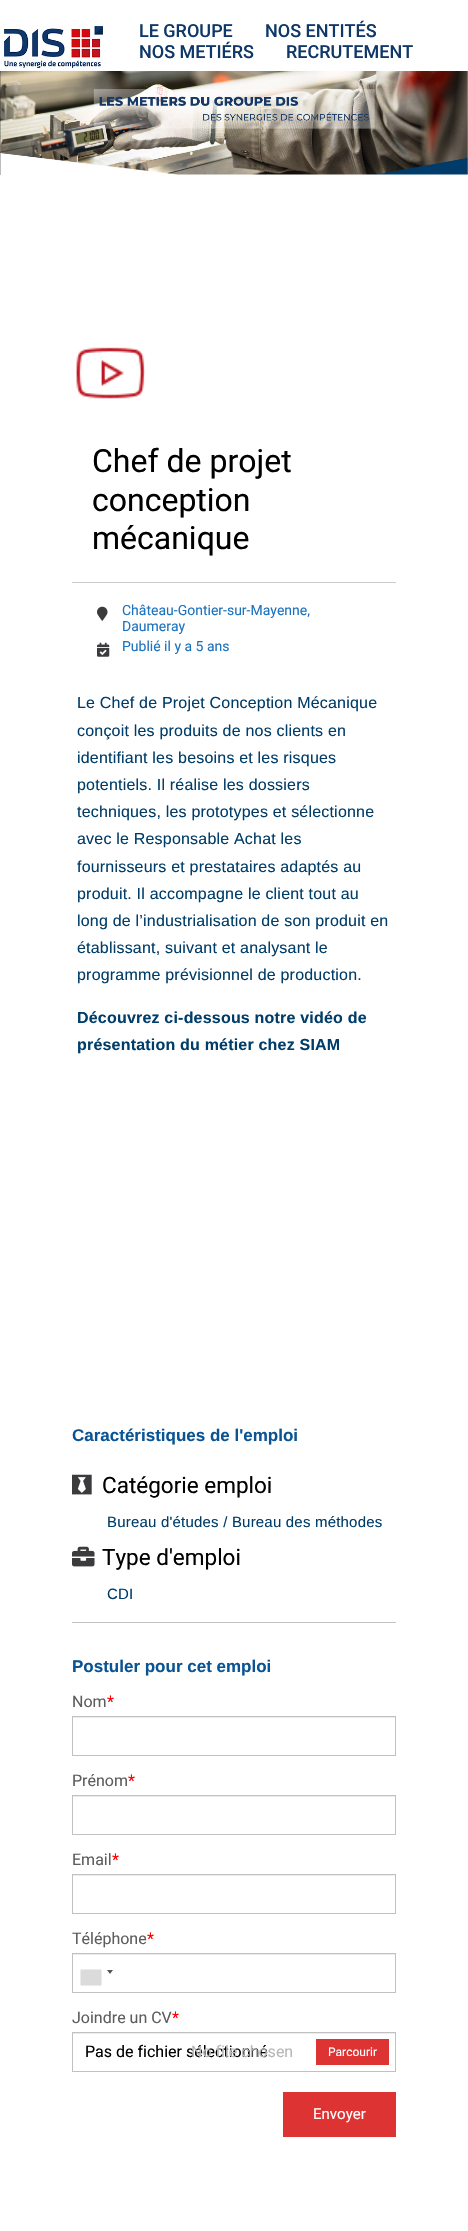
static SkFont makeFont(const char* family, int weight, float size, bool italic = false) {
  SkFontStyle style(weight, SkFontStyle::kNormal_Width,
    italic ? SkFontStyle::kItalic_Slant : SkFontStyle::kUpright_Slant);
  SkFont result(fontMgr->matchFamilyStyle(family, style), size);
  result.setSubpixel(true);
  return result;
}

static void text(SkCanvas* c, const char* s, float x, float y, const SkFont& font, SkColor color) {
  SkPaint ink(SkColor4f::FromColor(color));
  ink.setAntiAlias(true);
  c->drawString(s, x, y, font, ink);
}

static void spacedText(SkCanvas* c, const char* s, float x, float y, const SkFont& font, const SkPaint& ink, float letter, float word) {
  std::vector<SkGlyphID> glyphs(font.countText(s, strlen(s), SkTextEncoding::kUTF8));
  std::vector<float> xs(glyphs.size());
  font.textToGlyphs(s, strlen(s), SkTextEncoding::kUTF8, glyphs);
  font.getXPos(glyphs, xs, x);
  float extra = 0;
  for (size_t i = 0; i < glyphs.size(); i++) {
    xs[i] += extra;
    extra += letter + word * (glyphs[i] == font.unicharToGlyph(' '));
  }
  c->drawTextBlob(SkTextBlob::MakeFromPosHGlyphs(glyphs, xs, y, font), 0, 0, ink);
}

static void box(SkCanvas* c, float l, float t, float r, float b, SkColor color) {
  SkPaint ink(SkColor4f::FromColor(color));
  ink.setAntiAlias(true);
  c->drawRect(SkRect::MakeLTRB(l, t, r, b), ink);
}

static void picture(SkCanvas* c, const char* path, float l, float t, float r, float b) {
  auto image = SkImages::DeferredFromEncodedData(SkData::MakeFromFileName(path));
  c->drawImageRect(image, SkRect::MakeLTRB(l, t, r, b), SkSamplingOptions());
}

void draw(SkCanvas* c) {
  SkPaint paint;
  paint.setAntiAlias(true);
  c->clear(0xffffffff);
  picture(c, "img_01.png", 4, 26, 103, 68);
  SkFont face1 = makeFont("Roboto", 500, 18);
  text(c, "LE GROUPE", 139, 37, face1, 0xff0f3768);
  text(c, "NOS ENTITÉS", 265, 37, face1, 0xff0f3768);
  text(c, "NOS METIÉRS", 139, 58, face1, 0xff0f3768);
  text(c, "RECRUTEMENT", 286, 58, face1, 0xff0f3768);
  picture(c, "img_02.png", 0, 71, 468, 175);
  picture(c, "img_03.png", 76, 347, 146, 399);
  SkFont face2 = makeFont("Roboto", 400, 32);
  text(c, "Chef de projet", 92, 472, face2, 0xff000000);
  text(c, "conception", 92, 511, face2, 0xff000000);
  text(c, "mécanique", 92, 549, face2, 0xff000000);
  box(c, 72, 582, 396, 583, 0xffcccccc);
  picture(c, "img_04.png", 97, 606, 108, 621);
  SkFont face3 = makeFont("Roboto", 400, 14);
  text(c, "Château-Gontier-sur-Mayenne,", 122, 615, face3, 0xff1e73be);
  text(c, "Daumeray", 122, 631, face3, 0xff1e73be);
  picture(c, "img_05.png", 97, 642, 110, 657);
  text(c, "Publié il y a 5 ans", 122, 651, face3, 0xff1e73be);
  SkFont face4 = makeFont("Liberation Sans", 400, 16);
  paint.setColor(0xff003d69);
  spacedText(c, "Le Chef de Projet Conception Mécanique", 77, 708, face4, paint, 0.2f, 0);
  spacedText(c, "conçoit les produits de nos clients en", 77, 736, face4, paint, 0.2f, 0);
  spacedText(c, "identifiant les besoins et les risques", 77, 763, face4, paint, 0.2f, 0);
  spacedText(c, "potentiels. Il réalise les dossiers", 77, 790, face4, paint, 0.2f, 0);
  spacedText(c, "techniques, les prototypes et sélectionne", 77, 817, face4, paint, 0.2f, 0);
  spacedText(c, "avec le Responsable Achat les", 77, 844, face4, paint, 0.2f, 0);
  spacedText(c, "fournisseurs et prestataires adaptés au", 77, 872, face4, paint, 0.2f, 0);
  spacedText(c, "produit. Il accompagne le client tout au", 77, 899, face4, paint, 0.2f, 0);
  spacedText(c, "long de l’industrialisation de son produit en", 77, 926, face4, paint, 0.2f, 0);
  spacedText(c, "établissant, suivant et analysant le", 77, 953, face4, paint, 0.2f, 0);
  spacedText(c, "programme prévisionnel de production.", 77, 980, face4, paint, 0.2f, 0);
  SkFont face5 = makeFont("Liberation Sans", 700, 16);
  spacedText(c, "Découvrez ci-dessous notre vidéo de", 77, 1023, face5, paint, 0.2f, 0);
  spacedText(c, "présentation du métier chez SIAM", 77, 1050, face5, paint, 0.2f, 0);
  SkFont face6 = makeFont("Liberation Sans", 700, 17);
  text(c, "Caractéristiques de l'emploi", 72, 1441, face6, 0xff0b5493);
  picture(c, "img_06.png", 72, 1474, 92, 1495);
  SkFont face7 = makeFont("Roboto", 400, 22.5f);
  text(c, "Catégorie emploi", 102, 1493, face7, 0xff000000);
  SkFont face8 = makeFont("Liberation Sans", 400, 15);
  spacedText(c, "Bureau d'études / Bureau des méthodes", 107, 1527, face8, paint, 0.2f, 0);
  picture(c, "img_07.png", 72, 1546, 95, 1567);
  text(c, "Type d'emploi", 102, 1565, face7, 0xff000000);
  spacedText(c, "CDI", 107, 1599, face8, paint, 0.2f, 0);
  box(c, 72, 1622, 396, 1623, 0xffc1c1c1);
  text(c, "Postuler pour cet emploi", 72, 1672, face6, 0xff0b5493);
  SkFont face9 = makeFont("Roboto", 400, 16);
  text(c, "Nom", 72, 1707, face9, 0xff5d5d5d);
  text(c, "*", 107, 1707, face9, 0xffff0000);
  box(c, 73, 1717, 395, 1718, 0xffececec);
  paint.setStyle(SkPaint::kStroke_Style);
  paint.setStrokeWidth(1);
  paint.setColor(0xffc1c1c1);
  c->drawRect(SkRect::MakeLTRB(72.5f, 1716.5f, 395.5f, 1755.5f), paint);
  text(c, "Prénom", 72, 1786, face9, 0xff5d5d5d);
  text(c, "*", 128, 1786, face9, 0xffff0000);
  box(c, 73, 1796, 395, 1797, 0xffececec);
  c->drawRect(SkRect::MakeLTRB(72.5f, 1795.5f, 395.5f, 1834.5f), paint);
  text(c, "Email", 72, 1865, face9, 0xff5d5d5d);
  text(c, "*", 112, 1865, face9, 0xffff0000);
  box(c, 73, 1875, 395, 1876, 0xffececec);
  c->drawRect(SkRect::MakeLTRB(72.5f, 1874.5f, 395.5f, 1913.5f), paint);
  text(c, "Téléphone", 72, 1944, face9, 0xff5d5d5d);
  text(c, "*", 147, 1944, face9, 0xffff0000);
  box(c, 73, 1954, 395, 1955, 0xffececec);
  c->drawRect(SkRect::MakeLTRB(72.5f, 1953.5f, 395.5f, 1992.5f), paint);
  paint.setStyle(SkPaint::kFill_Style);
  paint.setColor(0xff888888);
  paint.setMaskFilter(SkMaskFilter::MakeBlur(kNormal_SkBlurStyle, 0.5f));
  c->drawRect(SkRect::MakeLTRB(81, 1970, 101, 1985), paint);
  paint.setMaskFilter(nullptr);
  box(c, 81, 1970, 101, 1985, 0xffdbdbdb);
  paint.setColor(0xff555555);
  c->drawPath(SkPathBuilder().moveTo(107, 1970).lineTo(113, 1970).lineTo(110, 1974).close().detach(), paint);
  text(c, "Joindre un CV", 72, 2023, face9, 0xff5d5d5d);
  text(c, "*", 172, 2023, face9, 0xffff0000);
  box(c, 73, 2033, 395, 2034, 0xffececec);
  paint.setStyle(SkPaint::kStroke_Style);
  paint.setColor(0xffc1c1c1);
  c->drawRect(SkRect::MakeLTRB(72.5f, 2032.5f, 395.5f, 2071.5f), paint);
  text(c, "Pas de fichier sélectionné", 85, 2057, face9, 0xff000000);
  text(c, "No file chosen", 191, 2057, face9, 0xffb8b8b8);
  box(c, 316, 2039, 389, 2065, 0xffdd3333);
  SkFont face10 = makeFont("Roboto", 400, 12);
  text(c, "Parcourir", 328, 2056, face10, 0xffffffff);
  box(c, 283, 2092, 396, 2137, 0xffdd3333);
  SkFont face11 = makeFont("Roboto", 400, 15);
  text(c, "Envoyer", 313, 2119, face11, 0xffffffff);
}
